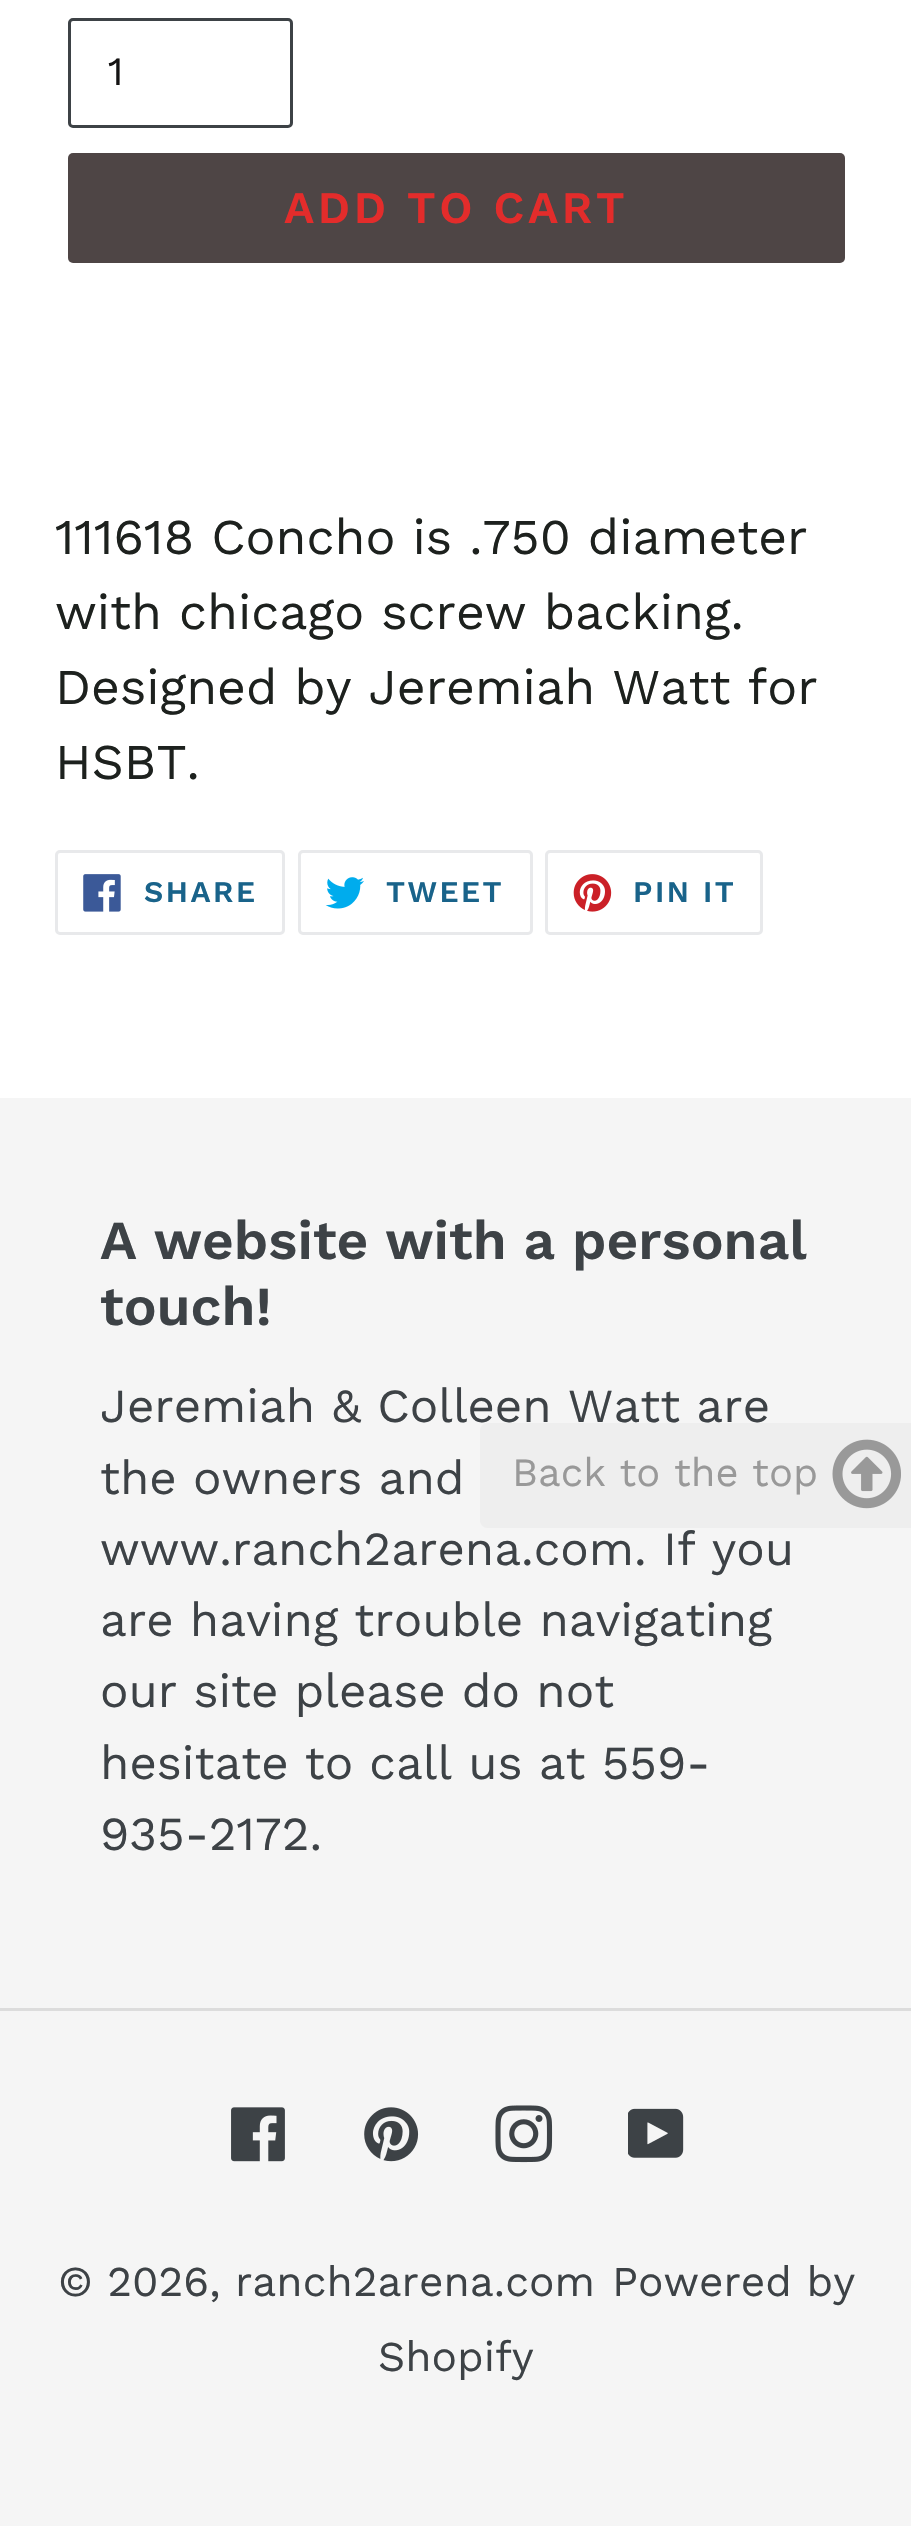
static SkFont makeFont(const char* family, int weight, float size, bool italic = false) {
  SkFontStyle style(weight, SkFontStyle::kNormal_Width,
    italic ? SkFontStyle::kItalic_Slant : SkFontStyle::kUpright_Slant);
  SkFont result(fontMgr->matchFamilyStyle(family, style), size);
  result.setSubpixel(true);
  return result;
}

static void text(SkCanvas* c, const char* s, float x, float y, const SkFont& font, SkColor color) {
  SkPaint ink(SkColor4f::FromColor(color));
  ink.setAntiAlias(true);
  c->drawString(s, x, y, font, ink);
}

static void spacedText(SkCanvas* c, const char* s, float x, float y, const SkFont& font, const SkPaint& ink, float letter, float word) {
  std::vector<SkGlyphID> glyphs(font.countText(s, strlen(s), SkTextEncoding::kUTF8));
  std::vector<float> xs(glyphs.size());
  font.textToGlyphs(s, strlen(s), SkTextEncoding::kUTF8, glyphs);
  font.getXPos(glyphs, xs, x);
  float extra = 0;
  for (size_t i = 0; i < glyphs.size(); i++) {
    xs[i] += extra;
    extra += letter + word * (glyphs[i] == font.unicharToGlyph(' '));
  }
  c->drawTextBlob(SkTextBlob::MakeFromPosHGlyphs(glyphs, xs, y, font), 0, 0, ink);
}

static void box(SkCanvas* c, float l, float t, float r, float b, SkColor color) {
  SkPaint ink(SkColor4f::FromColor(color));
  ink.setAntiAlias(true);
  c->drawRect(SkRect::MakeLTRB(l, t, r, b), ink);
}

static void roundBox(SkCanvas* c, float l, float t, float r, float b, float radius, SkColor color) {
  SkPaint ink(SkColor4f::FromColor(color));
  ink.setAntiAlias(true);
  c->drawRoundRect(SkRect::MakeLTRB(l, t, r, b), radius, radius, ink);
}

static void picture(SkCanvas* c, const char* path, float l, float t, float r, float b) {
  auto image = SkImages::DeferredFromEncodedData(SkData::MakeFromFileName(path));
  c->drawImageRect(image, SkRect::MakeLTRB(l, t, r, b), SkSamplingOptions());
}

void draw(SkCanvas* c) {
  SkPaint paint;
  paint.setAntiAlias(true);
  c->clear(0xffffffff);
  paint.setStyle(SkPaint::kStroke_Style);
  paint.setStrokeWidth(3);
  paint.setColor(0xff3d4246);
  c->drawRoundRect(SkRect::MakeLTRB(69.5f, 19.5f, 291.5f, 126.5f), 3.5f, 3.5f, paint);
  SkFont face1 = makeFont("Work Sans", 400, 40);
  text(c, "1", 108, 85, face1, 0xff141313);
  roundBox(c, 68, 153, 845, 263, 5, 0xff4e4545);
  SkFont face2 = makeFont("Work Sans", 600, 45);
  paint.setStyle(SkPaint::kFill_Style);
  paint.setColor(0xffe32c2b);
  spacedText(c, "ADD TO CART", 284, 223, face2, paint, 3.6f, 0);
  SkFont face3 = makeFont("Work Sans", 400, 50);
  text(c, "111618 Concho is .750 diameter", 55, 554, face3, 0xff1d211e);
  text(c, "with chicago screw backing.", 55, 629, face3, 0xff1d211e);
  text(c, "Designed by Jeremiah Watt for", 55, 704, face3, 0xff1d211e);
  text(c, "HSBT.", 55, 779, face3, 0xff1d211e);
  paint.setStyle(SkPaint::kStroke_Style);
  paint.setColor(0xffe8e9eb);
  c->drawRoundRect(SkRect::MakeLTRB(56.5f, 851.5f, 283.5f, 933.5f), 3.5f, 3.5f, paint);
  picture(c, "img_01.png", 83, 874, 121, 912);
  SkFont face4 = makeFont("Work Sans", 600, 30);
  paint.setStyle(SkPaint::kFill_Style);
  paint.setColor(0xff19638a);
  spacedText(c, "SHARE", 144, 902, face4, paint, 2.5f, 0);
  paint.setStyle(SkPaint::kStroke_Style);
  paint.setColor(0xffe8e9eb);
  c->drawRoundRect(SkRect::MakeLTRB(299.5f, 851.5f, 531.5f, 933.5f), 3.5f, 3.5f, paint);
  picture(c, "img_02.png", 325, 877, 364, 909);
  paint.setStyle(SkPaint::kFill_Style);
  paint.setColor(0xff19638a);
  spacedText(c, "TWEET", 386, 902, face4, paint, 2.5f, 0);
  paint.setStyle(SkPaint::kStroke_Style);
  paint.setColor(0xffe8e9eb);
  c->drawRoundRect(SkRect::MakeLTRB(546.5f, 851.5f, 761.5f, 933.5f), 3.5f, 3.5f, paint);
  picture(c, "img_03.png", 573, 874, 612, 912);
  paint.setStyle(SkPaint::kFill_Style);
  paint.setColor(0xff19638a);
  spacedText(c, "PIN IT", 633, 902, face4, paint, 2.5f, 0);
  box(c, 0, 1098, 911, 2526, 0xfff5f5f5);
  SkFont face5 = makeFont("Work Sans", 600, 55);
  text(c, "A website with a personal", 100, 1259, face5, 0xff3d4246);
  text(c, "touch!", 100, 1325, face5, 0xff3d4246);
  SkFont face6 = makeFont("Work Sans", 400, 47.5f);
  text(c, "Jeremiah & Colleen Watt are", 100, 1422, face6, 0xff3d4246);
  text(c, "the owners and", 100, 1494, face6, 0xff3d4246);
  text(c, "www.ranch2arena.com. If you", 100, 1565, face6, 0xff3d4246);
  text(c, "are having trouble navigating", 100, 1636, face6, 0xff3d4246);
  text(c, "our site please do not", 100, 1707, face6, 0xff3d4246);
  text(c, "hesitate to call us at 559-", 100, 1779, face6, 0xff3d4246);
  text(c, "935-2172.", 100, 1850, face6, 0xff3d4246);
  box(c, 0, 2008, 911, 2011, 0xffdcdcdc);
  picture(c, "img_04.png", 231, 2107, 285, 2162);
  picture(c, "img_05.png", 364, 2107, 419, 2162);
  picture(c, "img_06.png", 495, 2105, 553, 2163);
  picture(c, "img_07.png", 628, 2108, 684, 2158);
  SkFont face7 = makeFont("Work Sans", 400, 42.5f);
  text(c, "© 2026, ranch2arena.com", 58, 2296, face7, 0xff3d4246);
  text(c, "Powered by", 612, 2296, face7, 0xff3d4246);
  text(c, "Shopify", 378, 2371, face7, 0xff3d4246);
  paint.setColor(0xffeeeeee);
  c->drawPath(SkPathBuilder().moveTo(488, 1423).lineTo(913, 1423).lineTo(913, 1528).lineTo(488, 1528).cubicTo(483.5f, 1528, 480, 1524.5f, 480, 1520).lineTo(480, 1431).cubicTo(480, 1426.5f, 483.5f, 1423, 488, 1423).close().detach(), paint);
  text(c, "Back to the top", 512, 1486, face1, 0xff999999);
  picture(c, "img_08.png", 832, 1439, 901, 1509);
}
